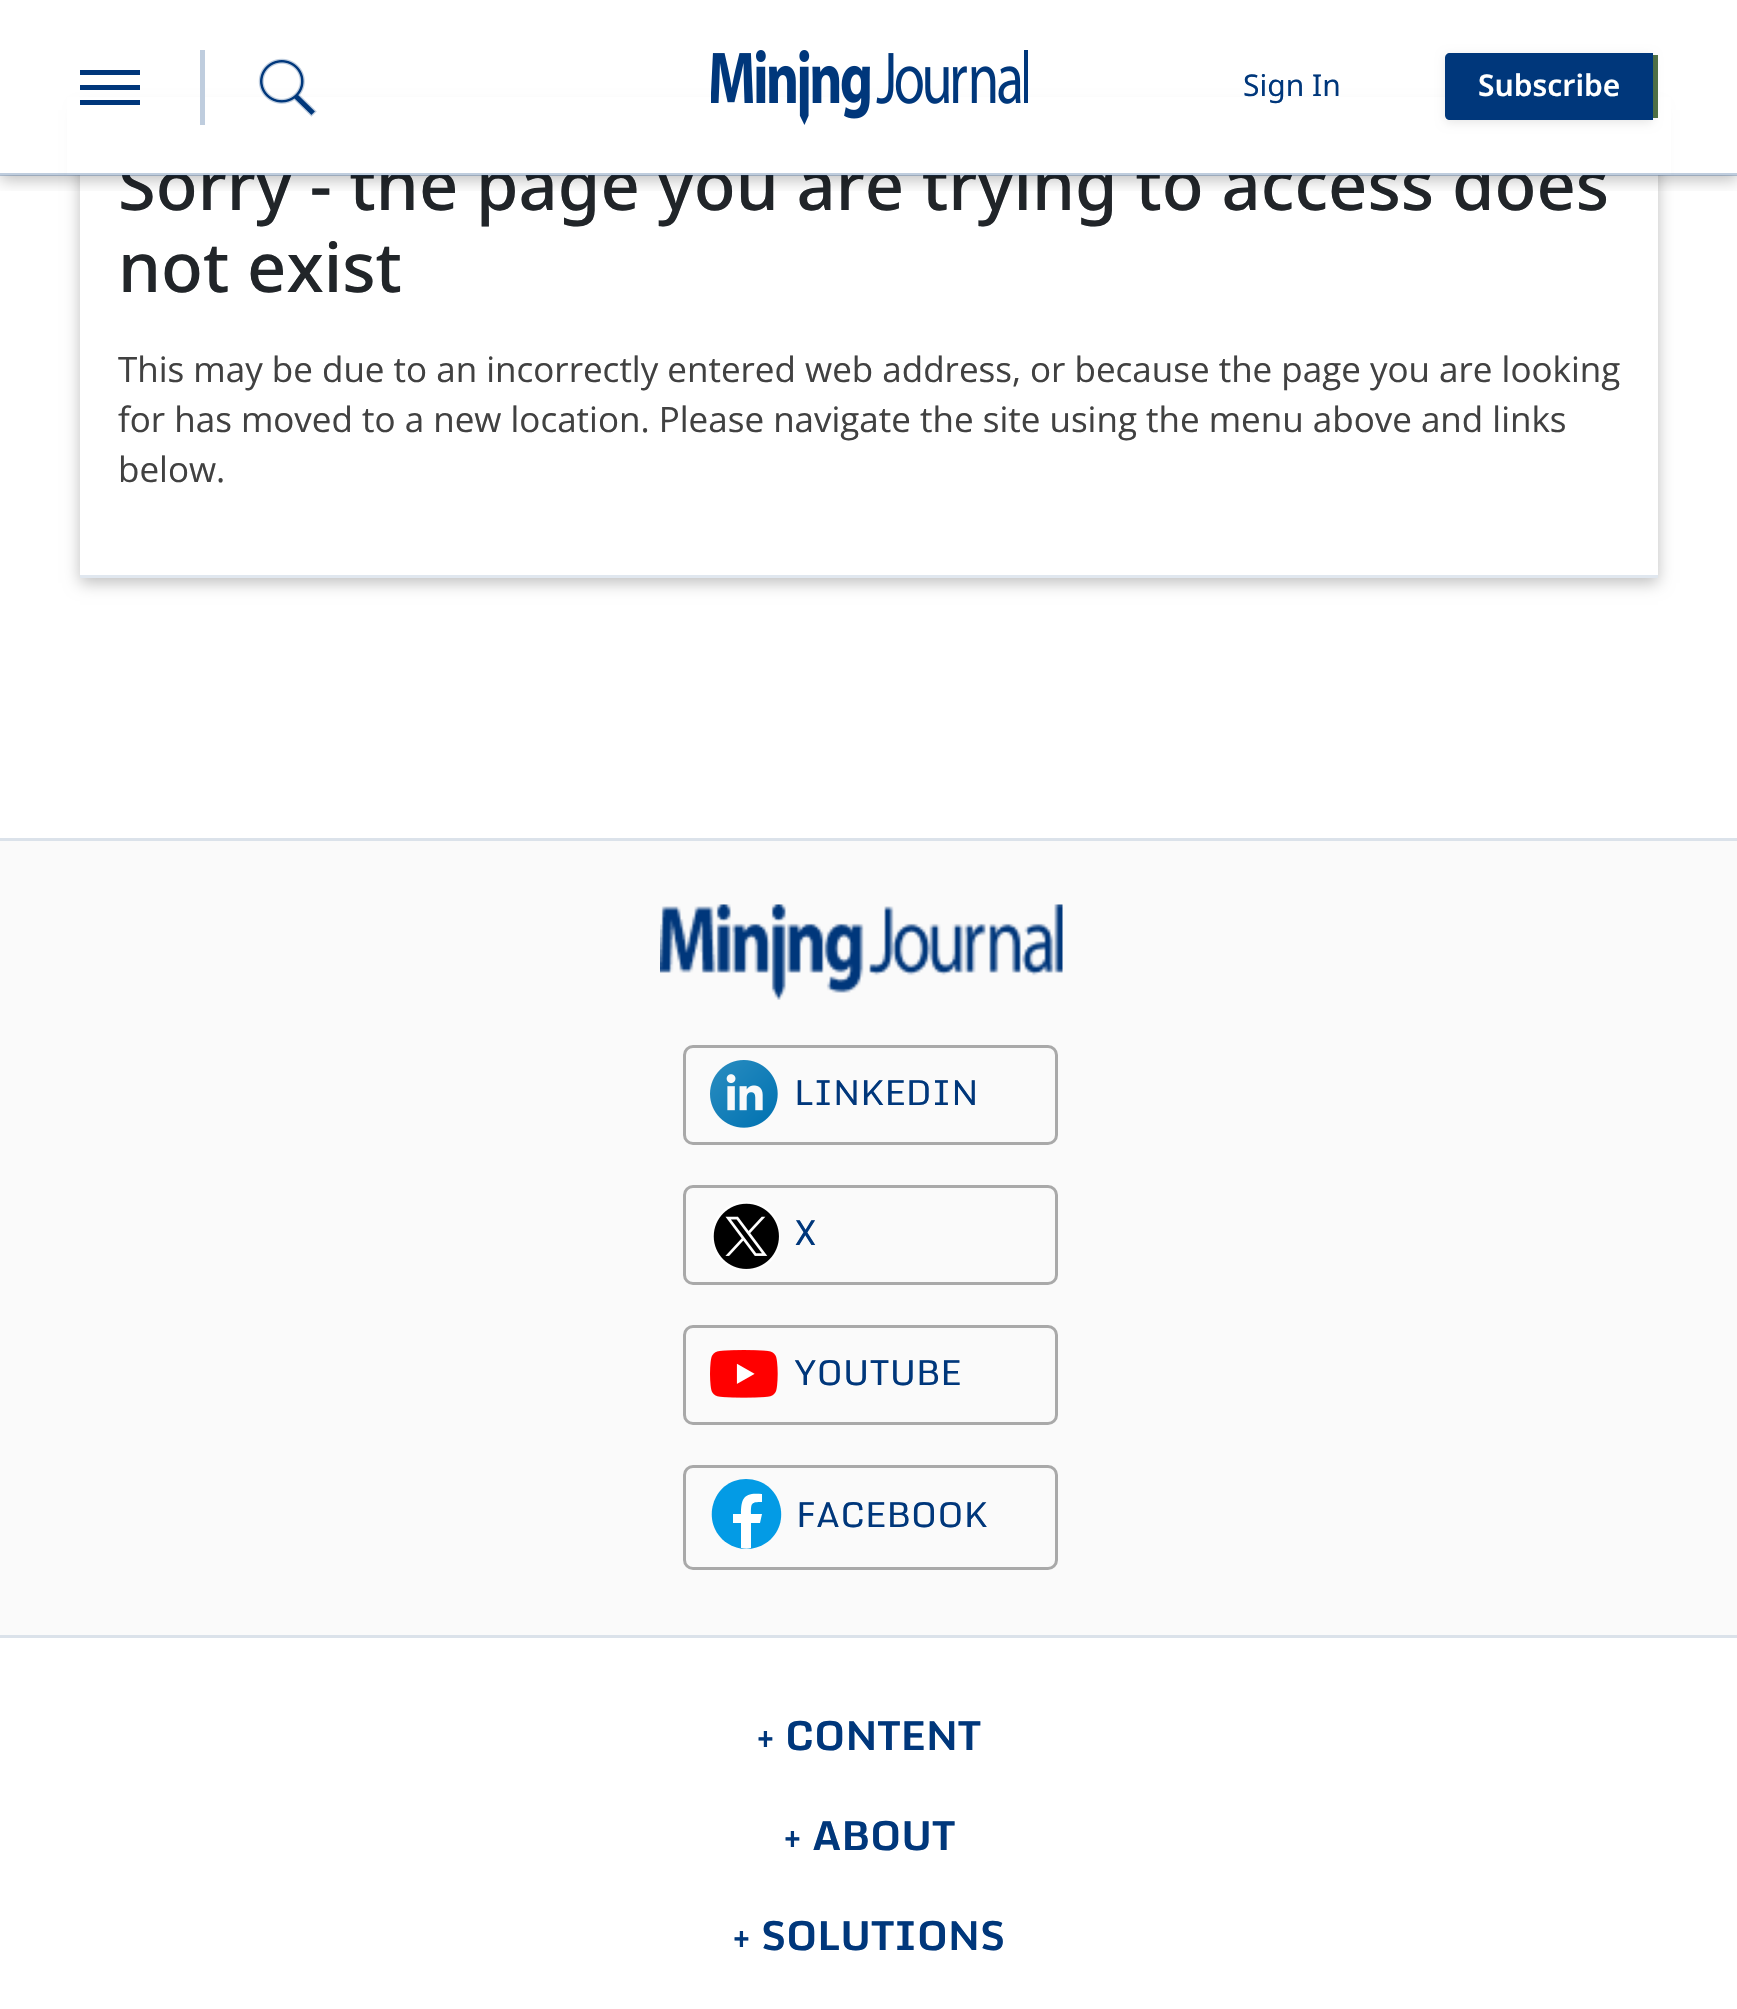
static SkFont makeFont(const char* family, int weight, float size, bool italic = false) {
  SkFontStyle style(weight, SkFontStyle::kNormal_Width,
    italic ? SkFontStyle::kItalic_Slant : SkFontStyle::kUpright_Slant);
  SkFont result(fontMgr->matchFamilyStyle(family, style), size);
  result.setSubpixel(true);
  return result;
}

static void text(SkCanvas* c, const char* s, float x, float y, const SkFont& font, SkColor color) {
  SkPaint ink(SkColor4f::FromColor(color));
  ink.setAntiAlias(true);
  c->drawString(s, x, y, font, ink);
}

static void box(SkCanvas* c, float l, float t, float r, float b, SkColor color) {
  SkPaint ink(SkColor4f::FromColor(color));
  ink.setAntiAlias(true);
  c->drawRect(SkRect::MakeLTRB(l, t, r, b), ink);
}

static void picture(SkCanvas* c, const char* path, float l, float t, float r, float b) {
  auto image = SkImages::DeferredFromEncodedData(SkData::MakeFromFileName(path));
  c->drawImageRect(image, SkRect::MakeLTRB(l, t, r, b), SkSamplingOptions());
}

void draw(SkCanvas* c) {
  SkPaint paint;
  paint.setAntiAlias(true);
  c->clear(0xffffffff);
  c->save();
  c->clipPath(SkPathBuilder(SkPathFillType::kEvenOdd).moveTo(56, 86).lineTo(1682, 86).lineTo(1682, 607).lineTo(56, 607).close().moveTo(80, 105).lineTo(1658, 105).lineTo(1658, 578).lineTo(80, 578).close().detach(), true);
  paint.setColor(0x40000000);
  paint.setMaskFilter(SkMaskFilter::MakeBlur(kNormal_SkBlurStyle, 7.5f));
  c->drawRect(SkRect::MakeLTRB(80, 110, 1658, 583), paint);
  paint.setMaskFilter(nullptr);
  c->restore();
  SkFont face1 = makeFont("Noto Sans", 500, 68.6f);
  text(c, "Sorry - the page you are trying to access does", 118, 210, face1, 0xff212529);
  box(c, 67, 97, 1671, 175, 0xffffffff);
  c->save();
  c->clipRect(SkRect::MakeLTRB(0, 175, 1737, 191));
  paint.setMaskFilter(SkMaskFilter::MakeBlur(kNormal_SkBlurStyle, 7.5f));
  c->drawRect(SkRect::MakeLTRB(0, 5, 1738, 180), paint);
  paint.setMaskFilter(nullptr);
  c->restore();
  box(c, 0, 173, 1737, 176, 0x4000377b);
  box(c, 80, 70, 140, 75, 0xff00377b);
  box(c, 80, 85, 140, 90, 0xff00377b);
  box(c, 80, 100, 140, 105, 0xff00377b);
  box(c, 200, 50, 205, 125, 0xffbfcdde);
  picture(c, "img_01.png", 258, 58, 317, 117);
  picture(c, "img_02.png", 711, 50, 1028, 125);
  SkFont face2 = makeFont("Noto Sans", 400, 30);
  text(c, "Sign In", 1243, 96, face2, 0xff00377b);
  box(c, 1653, 55, 1658, 118, 0xff517246);
  paint.setColor(0x17000000);
  paint.setMaskFilter(SkMaskFilter::MakeBlur(kNormal_SkBlurStyle, 5));
  c->drawRoundRect(SkRect::MakeLTRB(1445, 55, 1653, 123), 5, 5, paint);
  paint.setMaskFilter(nullptr);
  paint.setColor(0xff00377b);
  c->drawPath(SkPathBuilder().moveTo(1450, 53).lineTo(1653, 53).lineTo(1653, 120).lineTo(1450, 120).cubicTo(1447, 120, 1445, 118, 1445, 115).lineTo(1445, 58).cubicTo(1445, 55, 1447, 53, 1450, 53).close().detach(), paint);
  SkFont face3 = makeFont("Noto Sans", 600, 30);
  text(c, "Subscribe", 1478, 96, face3, 0xffffffff);
  box(c, 80, 575, 1658, 578, 0x1f00377b);
  text(c, "not exist", 118, 292, face1, 0xff212529);
  SkFont face4 = makeFont("Open Sans", 400, 35);
  text(c, "This may be due to an incorrectly entered web address, or because the page you are looking", 118, 382, face4, 0xff414141);
  text(c, "for has moved to a new location. Please navigate the site using the menu above and links", 118, 432, face4, 0xff414141);
  text(c, "below.", 118, 482, face4, 0xff414141);
  box(c, 0, 841, 1737, 1635, 0xfffafafa);
  box(c, 0, 838, 1737, 841, 0xffdbe2ea);
  box(c, 0, 1635, 1737, 1638, 0xffdbe2ea);
  picture(c, "img_03.png", 660, 904, 1063, 1000);
  paint.setStyle(SkPaint::kStroke_Style);
  paint.setStrokeWidth(3);
  paint.setColor(0xffa9a9a9);
  c->drawRoundRect(SkRect::MakeLTRB(684.5f, 1046.5f, 1056.5f, 1143.5f), 8.5f, 8.5f, paint);
  picture(c, "img_04.png", 710, 1060, 778, 1128);
  SkFont face5 = makeFont("Monda", 400, 35);
  text(c, "LINKEDIN", 794, 1105, face5, 0xff00377b);
  c->drawRoundRect(SkRect::MakeLTRB(684.5f, 1186.5f, 1056.5f, 1283.5f), 8.5f, 8.5f, paint);
  picture(c, "img_05.png", 712, 1202, 780, 1270);
  text(c, "X", 794, 1245, face5, 0xff00377b);
  c->drawRoundRect(SkRect::MakeLTRB(684.5f, 1326.5f, 1056.5f, 1423.5f), 8.5f, 8.5f, paint);
  picture(c, "img_06.png", 710, 1350, 778, 1398);
  text(c, "YOUTUBE", 794, 1385, face5, 0xff00377b);
  c->drawRoundRect(SkRect::MakeLTRB(684.5f, 1466.5f, 1056.5f, 1568.5f), 8.5f, 8.5f, paint);
  paint.setStyle(SkPaint::kFill_Style);
  paint.setColor(0xff039be5);
  c->drawPath(SkPathBuilder().moveTo(746, 1479).cubicTo(712, 1479, 699, 1524, 727, 1543).cubicTo(733, 1547, 740, 1549, 746, 1549).cubicTo(753, 1549, 760, 1547, 766, 1543).cubicTo(794, 1524, 781, 1479, 746, 1479).close().detach(), paint);
  paint.setColor(0xffffffff);
  c->drawPath(SkPathBuilder().moveTo(751, 1523).lineTo(760, 1523).lineTo(762, 1514).lineTo(751, 1514).cubicTo(751, 1503, 751, 1502, 762, 1502).lineTo(762, 1494).cubicTo(744, 1492, 741, 1498, 741, 1514).lineTo(733, 1514).lineTo(733, 1523).lineTo(741, 1523).lineTo(741, 1548).cubicTo(745, 1549, 748, 1549, 751, 1548).close().detach(), paint);
  text(c, "FACEBOOK", 796, 1527, face5, 0xff00377b);
  SkFont face6 = makeFont("Monda", 700, 40);
  text(c, "+ CONTENT", 756, 1750, face6, 0xff00377b);
  text(c, "+ ABOUT", 783, 1850, face6, 0xff00377b);
  text(c, "+ SOLUTIONS", 732, 1950, face6, 0xff00377b);
}
